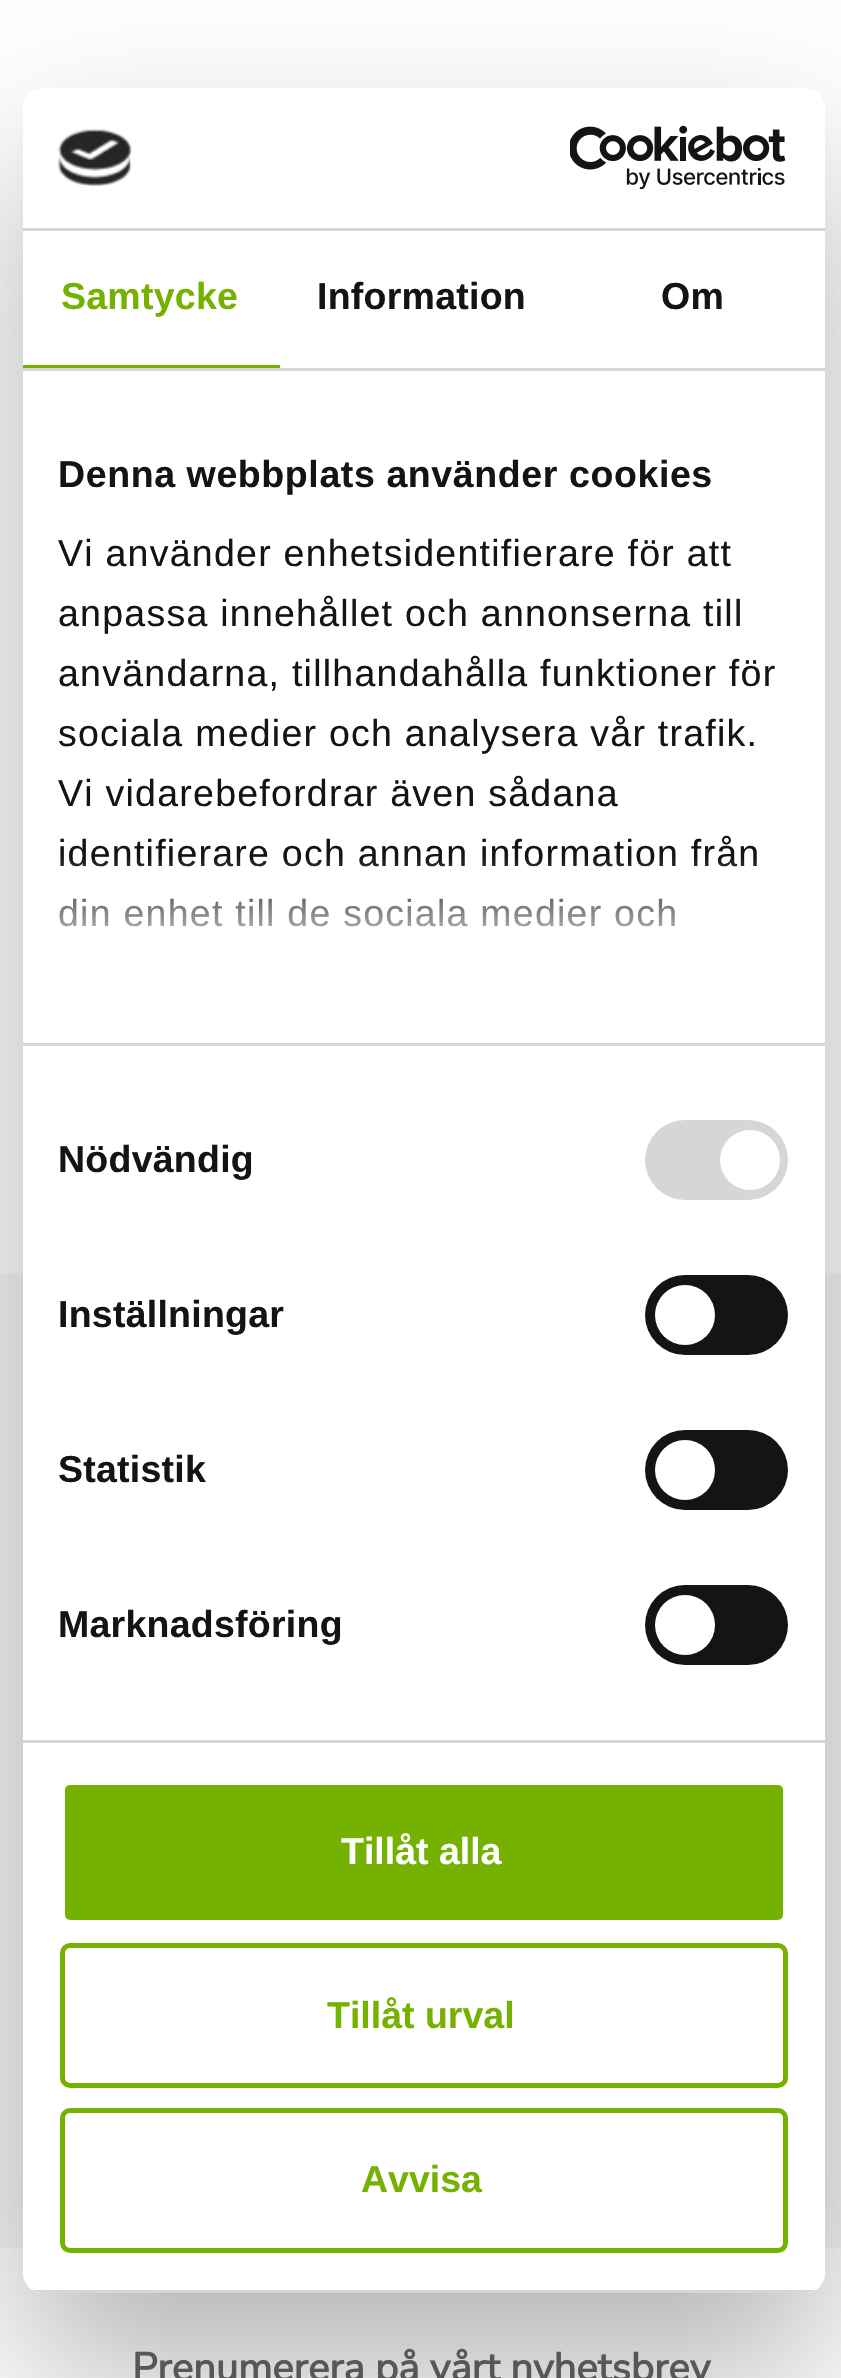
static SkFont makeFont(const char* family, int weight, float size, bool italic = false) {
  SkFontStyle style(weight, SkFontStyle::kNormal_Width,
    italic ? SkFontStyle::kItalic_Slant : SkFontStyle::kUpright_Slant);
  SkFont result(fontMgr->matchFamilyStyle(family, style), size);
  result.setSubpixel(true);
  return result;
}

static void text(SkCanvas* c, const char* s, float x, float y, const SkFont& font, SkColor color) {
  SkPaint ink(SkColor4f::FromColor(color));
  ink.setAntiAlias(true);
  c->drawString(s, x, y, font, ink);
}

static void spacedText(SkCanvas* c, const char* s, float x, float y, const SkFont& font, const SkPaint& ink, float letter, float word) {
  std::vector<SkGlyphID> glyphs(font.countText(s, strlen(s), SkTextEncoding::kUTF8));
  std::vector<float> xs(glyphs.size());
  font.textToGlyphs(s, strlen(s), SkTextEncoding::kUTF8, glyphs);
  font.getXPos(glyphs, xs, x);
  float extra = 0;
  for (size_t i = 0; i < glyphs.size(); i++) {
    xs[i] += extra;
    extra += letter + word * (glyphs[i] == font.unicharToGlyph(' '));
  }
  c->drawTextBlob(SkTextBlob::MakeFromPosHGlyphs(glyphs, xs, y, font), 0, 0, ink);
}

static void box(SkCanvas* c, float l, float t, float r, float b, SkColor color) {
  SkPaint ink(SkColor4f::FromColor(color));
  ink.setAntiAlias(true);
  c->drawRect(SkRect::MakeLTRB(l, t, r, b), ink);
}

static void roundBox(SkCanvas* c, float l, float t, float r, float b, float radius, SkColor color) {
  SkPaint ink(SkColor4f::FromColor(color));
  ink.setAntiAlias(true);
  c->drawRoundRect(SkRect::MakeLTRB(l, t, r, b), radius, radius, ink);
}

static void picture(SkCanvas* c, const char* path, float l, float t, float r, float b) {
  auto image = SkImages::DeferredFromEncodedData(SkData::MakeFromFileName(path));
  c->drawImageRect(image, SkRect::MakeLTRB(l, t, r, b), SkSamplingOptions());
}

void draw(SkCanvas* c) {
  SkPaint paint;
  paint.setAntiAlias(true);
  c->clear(0xffffffff);
  box(c, 0, 1273, 841, 2248, 0xfff7f7f7);
  c->save();
  c->clipPath(SkPathBuilder(SkPathFillType::kEvenOdd).moveTo(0, 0).lineTo(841, 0).lineTo(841, 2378).lineTo(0, 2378).close().moveTo(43, 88).lineTo(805, 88).cubicTo(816, 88, 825, 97, 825, 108).lineTo(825, 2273).cubicTo(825, 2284, 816, 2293, 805, 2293).lineTo(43, 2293).cubicTo(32, 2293, 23, 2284, 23, 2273).lineTo(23, 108).cubicTo(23, 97, 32, 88, 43, 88).close().detach(), true);
  paint.setColor(0x4d000000);
  paint.setMaskFilter(SkMaskFilter::MakeBlur(kNormal_SkBlurStyle, 85));
  c->drawRoundRect(SkRect::MakeLTRB(23, 168, 825, 2373), 20, 20, paint);
  paint.setMaskFilter(nullptr);
  c->restore();
  roundBox(c, 23, 88, 825, 2293, 20, 0xffffffff);
  box(c, 23, 228, 825, 231, 0xffd6d6d6);
  picture(c, "img_01.png", 57, 129, 132, 186);
  picture(c, "img_02.png", 570, 125, 786, 190);
  box(c, 23, 368, 825, 371, 0xffd6d6d6);
  box(c, 23, 365, 280, 368, 0xff75b100);
  SkFont face1 = makeFont("Liberation Sans", 700, 37.5f);
  paint.setColor(0xff75b100);
  spacedText(c, "Samtycke", 61, 309, face1, paint, 0.25f, 0);
  paint.setColor(0xff141414);
  spacedText(c, "Information", 317, 309, face1, paint, 0.25f, 0);
  spacedText(c, "Om", 661, 309, face1, paint, 0.25f, 0);
  box(c, 23, 1043, 825, 1046, 0xffd6d6d6);
  spacedText(c, "Denna webbplats använder cookies", 58, 487, face1, paint, 0.6f, 0);
  SkFont face2 = makeFont("Liberation Sans", 400, 37.5f);
  spacedText(c, "Vi använder enhetsidentifierare för att", 58, 566, face2, paint, 1.25f, 0);
  spacedText(c, "anpassa innehållet och annonserna till", 58, 626, face2, paint, 1.25f, 0);
  spacedText(c, "användarna, tillhandahålla funktioner för", 58, 686, face2, paint, 1.25f, 0);
  spacedText(c, "sociala medier och analysera vår trafik.", 58, 746, face2, paint, 1.25f, 0);
  spacedText(c, "Vi vidarebefordrar även sådana", 58, 806, face2, paint, 1.25f, 0);
  spacedText(c, "identifierare och annan information från", 58, 866, face2, paint, 1.25f, 0);
  spacedText(c, "din enhet till de sociala medier och", 58, 926, face2, paint, 1.25f, 0);
  {
    const SkColor colors[] = {0xffffffff, 0xccffffff, 0x00ffffff};
    const float stops[] = {0, 0.5f, 1};
    const SkPoint ends[] = {{406, 1043}, {406, 856}};
    paint.setShader(SkGradientShader::MakeLinear(ends, colors, stops, 3, SkTileMode::kClamp));
    paint.setAlpha(255);
  }
  c->drawRect(SkRect::MakeLTRB(59, 859, 757, 927), paint);
  box(c, 23, 1740, 825, 1743, 0xffd6d6d6);
  paint.setShader(nullptr);
  paint.setColor(0xff141414);
  spacedText(c, "Nödvändig", 58, 1172, face1, paint, 0.25f, 0);
  roundBox(c, 645, 1120, 788, 1200, 40, 0xffd6d6d6);
  paint.setColor(0xffffffff);
  c->drawCircle(750, 1160, 30, paint);
  paint.setColor(0xff141414);
  spacedText(c, "Inställningar", 58, 1327, face1, paint, 0.25f, 0);
  roundBox(c, 645, 1275, 788, 1355, 40, 0xff141414);
  paint.setColor(0xffffffff);
  c->drawCircle(685, 1315, 30, paint);
  paint.setColor(0xff141414);
  spacedText(c, "Statistik", 58, 1482, face1, paint, 0.25f, 0);
  roundBox(c, 645, 1430, 788, 1510, 40, 0xff141414);
  paint.setColor(0xffffffff);
  c->drawCircle(685, 1470, 30, paint);
  paint.setColor(0xff141414);
  spacedText(c, "Marknadsföring", 58, 1637, face1, paint, 0.25f, 0);
  roundBox(c, 645, 1585, 788, 1665, 40, 0xff141414);
  paint.setColor(0xffffffff);
  c->drawCircle(685, 1625, 30, paint);
  c->save();
  c->clipPath(SkPathBuilder().moveTo(43, 88).lineTo(805, 88).cubicTo(816, 88, 825, 97, 825, 108).lineTo(825, 2273).cubicTo(825, 2284, 816, 2293, 805, 2293).lineTo(43, 2293).cubicTo(32, 2293, 23, 2284, 23, 2273).lineTo(23, 108).cubicTo(23, 97, 32, 88, 43, 88).close().detach(), true);
  box(c, 32, 2290, 816, 2293, 0xffd6d6d6);
  c->restore();
  paint.setColor(0xff75b100);
  c->drawRoundRect(SkRect::MakeLTRB(62.5f, 1782.5f, 785.5f, 1922.5f), 7.5f, 7.5f, paint);
  paint.setStyle(SkPaint::kStroke_Style);
  paint.setStrokeWidth(5);
  paint.setColor(0xffffffff);
  c->drawRoundRect(SkRect::MakeLTRB(62.5f, 1782.5f, 785.5f, 1922.5f), 7.5f, 7.5f, paint);
  text(c, "Tillåt alla", 341, 1864, face1, 0xffffffff);
  paint.setColor(0xff75b100);
  c->drawRoundRect(SkRect::MakeLTRB(62.5f, 1945.5f, 785.5f, 2085.5f), 7.5f, 7.5f, paint);
  text(c, "Tillåt urval", 327, 2028, face1, 0xff75b100);
  c->drawRoundRect(SkRect::MakeLTRB(62.5f, 2110.5f, 785.5f, 2250.5f), 7.5f, 7.5f, paint);
  text(c, "Avvisa", 361, 2192, face1, 0xff75b100);
  SkFont face3 = makeFont("Nunito Sans", 700, 40);
  text(c, "Prenumerera på vårt nyhetsbrev", 132, 2381, face3, 0xff575756);
}
